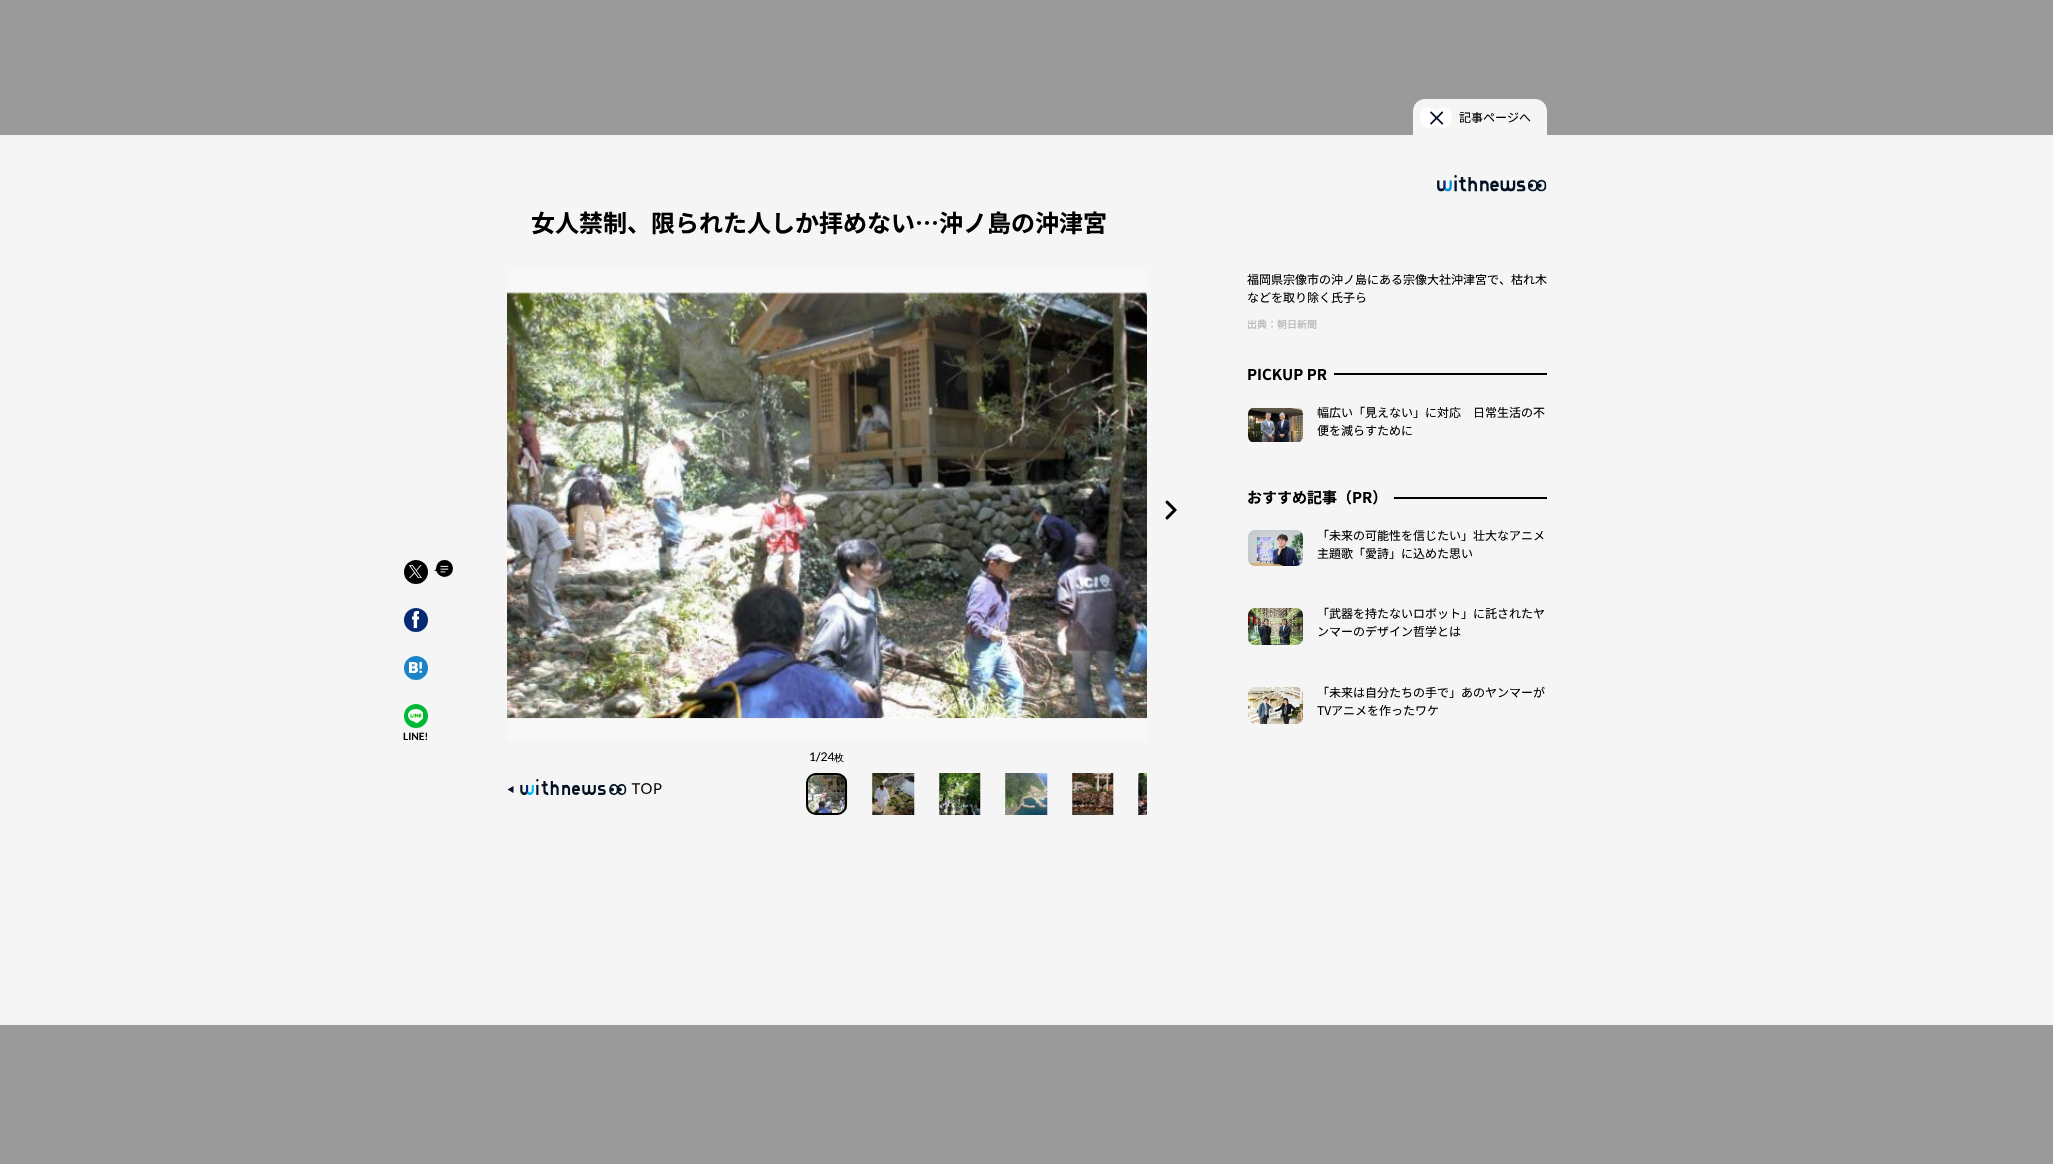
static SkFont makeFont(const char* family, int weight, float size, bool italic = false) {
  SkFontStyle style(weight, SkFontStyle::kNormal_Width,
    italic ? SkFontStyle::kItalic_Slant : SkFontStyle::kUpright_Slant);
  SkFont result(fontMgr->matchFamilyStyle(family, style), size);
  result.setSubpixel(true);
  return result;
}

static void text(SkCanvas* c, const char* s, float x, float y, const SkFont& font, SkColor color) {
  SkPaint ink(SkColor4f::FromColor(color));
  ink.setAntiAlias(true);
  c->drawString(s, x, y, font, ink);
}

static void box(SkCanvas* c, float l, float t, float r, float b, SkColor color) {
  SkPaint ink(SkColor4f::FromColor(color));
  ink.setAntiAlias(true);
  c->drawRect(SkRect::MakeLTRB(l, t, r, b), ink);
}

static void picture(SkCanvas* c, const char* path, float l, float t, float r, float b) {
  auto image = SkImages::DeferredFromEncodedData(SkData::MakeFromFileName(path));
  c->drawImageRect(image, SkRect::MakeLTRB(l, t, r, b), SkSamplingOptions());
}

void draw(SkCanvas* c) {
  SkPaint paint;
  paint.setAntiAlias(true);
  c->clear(0xff9a9a9a);
  box(c, 0, 135, 2053, 1025, 0xfff5f5f5);
  paint.setColor(0xff000000);
  c->drawCircle(416, 572, 12, paint);
  picture(c, "img_01.png", 409, 565, 422, 579);
  picture(c, "img_02.png", 434, 560, 453, 577);
  paint.setColor(0xff072a74);
  c->drawCircle(416, 620, 12, paint);
  picture(c, "img_03.png", 412, 611, 419, 629);
  paint.setColor(0xff1985c8);
  c->drawCircle(416, 668, 12, paint);
  picture(c, "img_04.png", 409, 662, 422, 674);
  paint.setColor(0xff00b833);
  c->drawCircle(416, 716, 12, paint);
  picture(c, "img_05.png", 408, 709, 423, 723);
  SkFont face1 = makeFont("Lato", 700, 10);
  text(c, "LINE!", 403, 740, face1, 0xff000000);
  paint.setColor(0xfff5f5f5);
  c->drawPath(SkPathBuilder().moveTo(1425, 99).lineTo(1535, 99).cubicTo(1541.5f, 99, 1547, 104.5f, 1547, 111).lineTo(1547, 135).lineTo(1413, 135).lineTo(1413, 111).cubicTo(1413, 104.5f, 1418.5f, 99, 1425, 99).close().detach(), paint);
  picture(c, "img_06.png", 1420, 107, 1452, 128);
  SkFont face2 = makeFont("Noto Sans JP", 400, 12);
  text(c, "記事ページへ", 1459, 122, face2, 0xff000000);
  picture(c, "img_07.png", 1437, 175, 1547, 192);
  SkFont face3 = makeFont("Noto Sans JP", 700, 24);
  text(c, "女人禁制、限られた人しか拝めない…沖ノ島の沖津宮", 531, 232, face3, 0xff000000);
  text(c, "福岡県宗像市の沖ノ島にある宗像大社沖津宮で、枯れ木", 1247, 284, face2, 0xff000000);
  text(c, "などを取り除く氏子ら", 1247, 302, face2, 0xff000000);
  SkFont face4 = makeFont("Noto Sans JP", 400, 10);
  text(c, "出典：朝日新聞", 1247, 328, face4, 0xffb2b2b2);
  SkFont face5 = makeFont("Noto Sans JP", 700, 15);
  text(c, "PICKUP PR", 1247, 380, face5, 0xff000000);
  box(c, 1334, 373, 1547, 375, 0xff000000);
  paint.setColor(0xfff8f8f8);
  c->drawRoundRect(SkRect::MakeLTRB(1247.5f, 406.5f, 1303.5f, 443.5f), 7.5f, 7.5f, paint);
  paint.setStyle(SkPaint::kStroke_Style);
  paint.setStrokeWidth(1);
  paint.setColor(0xfff5f5f5);
  c->drawRoundRect(SkRect::MakeLTRB(1247.5f, 406.5f, 1303.5f, 443.5f), 7.5f, 7.5f, paint);
  picture(c, "img_08.png", 1248, 408, 1303, 442);
  text(c, "幅広い「見えない」に対応　日常生活の不", 1317, 417, face2, 0xff000000);
  text(c, "便を減らすために", 1317, 435, face2, 0xff000000);
  text(c, "おすすめ記事（PR）", 1247, 503, face5, 0xff000000);
  box(c, 1394, 497, 1547, 499, 0xff000000);
  picture(c, "img_09.png", 1248, 530, 1303, 566);
  text(c, "「未来の可能性を信じたい」壮大なアニメ", 1317, 540, face2, 0xff000000);
  text(c, "主題歌「愛詩」に込めた思い", 1317, 558, face2, 0xff000000);
  picture(c, "img_10.png", 1248, 608, 1303, 645);
  text(c, "「武器を持たないロボット」に託されたヤ", 1317, 618, face2, 0xff000000);
  text(c, "ンマーのデザイン哲学とは", 1317, 636, face2, 0xff000000);
  picture(c, "img_11.png", 1248, 687, 1303, 724);
  text(c, "「未来は自分たちの手で」あのヤンマーが", 1317, 697, face2, 0xff000000);
  text(c, "TVアニメを作ったワケ", 1317, 715, face2, 0xff000000);
  box(c, 507, 270, 1147, 741, 0xfff8f8f8);
  picture(c, "img_12.png", 507, 292, 1147, 719);
  picture(c, "img_13.png", 1165, 500, 1177, 520);
  SkFont face6 = makeFont("Lato", 400, 12);
  text(c, "1/24", 809, 761, face6, 0xff000000);
  SkFont face7 = makeFont("WenQuanYi Zen Hei", 500, 10);
  text(c, "枚", 834, 761, face7, 0xff000000);
  picture(c, "img_14.png", 806, 773, 848, 815);
  paint.setStrokeWidth(2);
  paint.setColor(0xff000000);
  c->drawRoundRect(SkRect::MakeLTRB(807, 774, 846, 814), 9, 9, paint);
  picture(c, "img_15.png", 872, 773, 915, 815);
  picture(c, "img_16.png", 939, 773, 981, 815);
  picture(c, "img_17.png", 1005, 773, 1048, 815);
  picture(c, "img_18.png", 1072, 773, 1114, 815);
  picture(c, "img_19.png", 1138, 773, 1147, 815);
  picture(c, "img_20.png", 507, 779, 662, 795);
}
